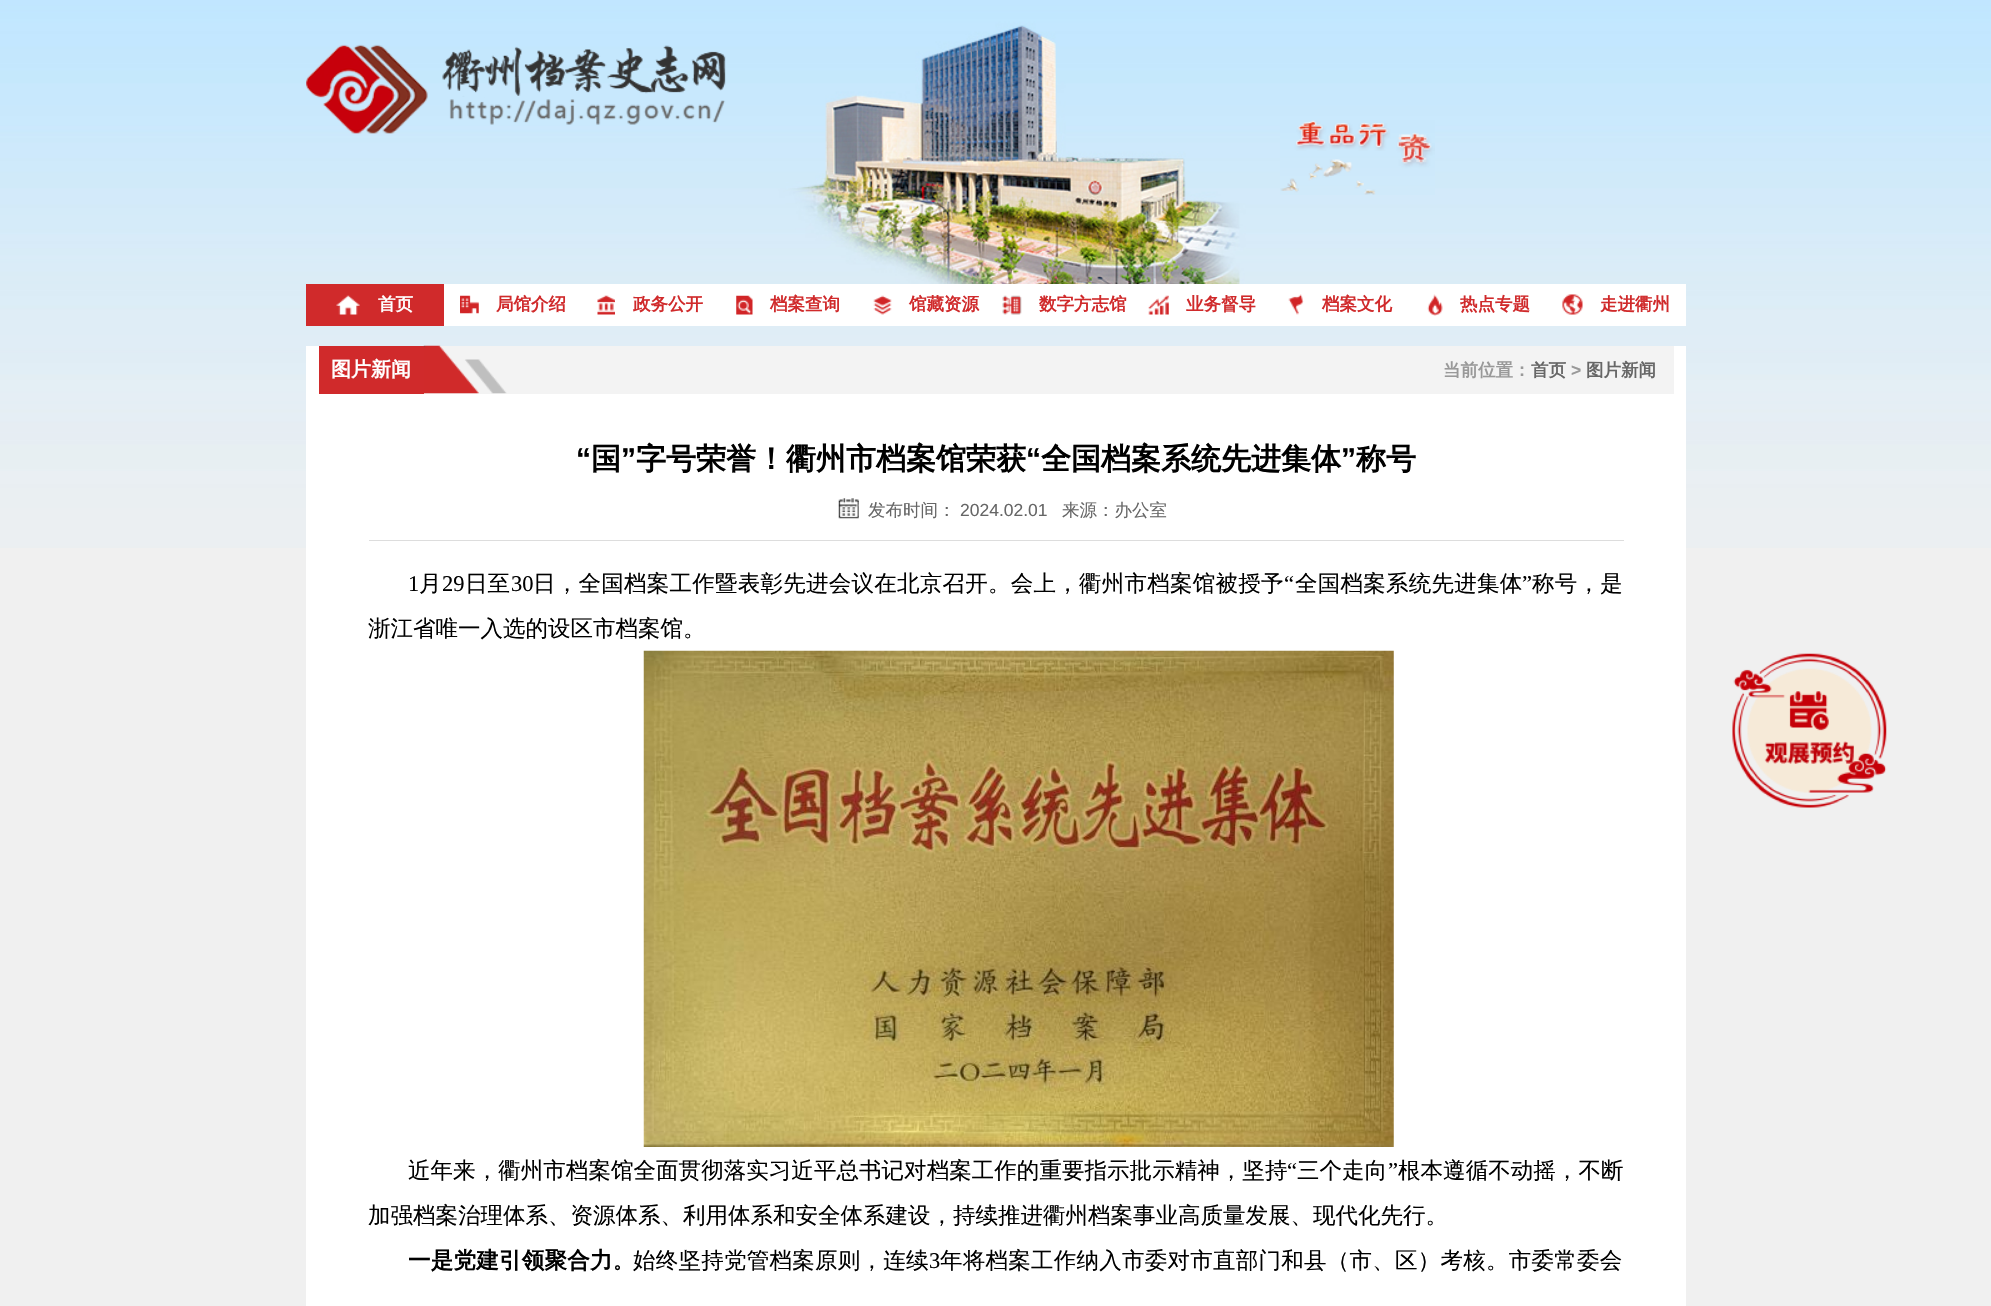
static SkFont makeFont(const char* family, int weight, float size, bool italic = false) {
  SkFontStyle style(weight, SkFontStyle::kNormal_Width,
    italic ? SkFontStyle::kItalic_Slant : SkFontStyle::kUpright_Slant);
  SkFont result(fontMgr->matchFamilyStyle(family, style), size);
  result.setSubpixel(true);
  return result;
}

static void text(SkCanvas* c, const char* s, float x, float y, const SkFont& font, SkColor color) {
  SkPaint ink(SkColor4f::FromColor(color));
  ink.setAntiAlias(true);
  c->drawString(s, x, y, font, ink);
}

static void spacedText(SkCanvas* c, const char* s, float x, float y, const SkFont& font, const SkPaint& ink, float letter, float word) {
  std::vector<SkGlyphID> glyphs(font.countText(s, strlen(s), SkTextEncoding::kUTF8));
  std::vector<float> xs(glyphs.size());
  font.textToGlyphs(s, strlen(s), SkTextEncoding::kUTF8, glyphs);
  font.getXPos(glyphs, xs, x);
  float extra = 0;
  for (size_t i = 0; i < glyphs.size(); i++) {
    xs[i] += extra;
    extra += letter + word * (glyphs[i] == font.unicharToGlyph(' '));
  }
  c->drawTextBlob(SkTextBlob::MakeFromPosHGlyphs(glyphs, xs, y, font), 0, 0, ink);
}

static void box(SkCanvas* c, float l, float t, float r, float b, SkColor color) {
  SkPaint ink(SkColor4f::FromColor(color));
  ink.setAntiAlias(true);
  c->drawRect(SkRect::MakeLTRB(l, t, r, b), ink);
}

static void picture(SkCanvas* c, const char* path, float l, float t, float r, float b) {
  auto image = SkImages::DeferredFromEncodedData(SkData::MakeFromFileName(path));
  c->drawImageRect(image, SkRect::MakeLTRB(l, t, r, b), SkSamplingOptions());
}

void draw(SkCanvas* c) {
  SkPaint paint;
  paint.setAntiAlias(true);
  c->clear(0xfff0f0f0);
  picture(c, "img_01.png", 0, 0, 1991, 548);
  picture(c, "img_02.png", 306, 44, 726, 134);
  picture(c, "img_03.png", 1280, 120, 1435, 195);
  box(c, 444, 284, 1686, 326, 0xffffffff);
  box(c, 306, 284, 444, 326, 0xffd02a2b);
  picture(c, "img_04.png", 336, 295, 360, 315);
  SkFont face1 = makeFont("WenQuanYi Zen Hei", 700, 17.5f);
  text(c, "首页", 378, 310, face1, 0xffffffff);
  picture(c, "img_05.png", 460, 295, 479, 314);
  text(c, "局馆介绍", 496, 310, face1, 0xffd02a2b);
  picture(c, "img_06.png", 597, 295, 615, 315);
  text(c, "政务公开", 633, 310, face1, 0xffd02a2b);
  picture(c, "img_07.png", 736, 295, 753, 315);
  text(c, "档案查询", 770, 310, face1, 0xffd02a2b);
  picture(c, "img_08.png", 873, 295, 892, 315);
  text(c, "馆藏资源", 909, 310, face1, 0xffd02a2b);
  picture(c, "img_09.png", 1002, 295, 1022, 315);
  text(c, "数字方志馆", 1039, 310, face1, 0xffd02a2b);
  picture(c, "img_10.png", 1148, 295, 1169, 315);
  text(c, "业务督导", 1186, 310, face1, 0xffd02a2b);
  picture(c, "img_11.png", 1288, 294, 1304, 315);
  text(c, "档案文化", 1322, 310, face1, 0xffd02a2b);
  picture(c, "img_12.png", 1427, 294, 1443, 316);
  text(c, "热点专题", 1460, 310, face1, 0xffd02a2b);
  picture(c, "img_13.png", 1562, 294, 1583, 315);
  text(c, "走进衢州", 1600, 310, face1, 0xffd02a2b);
  box(c, 306, 346, 1686, 1306, 0xffffffff);
  box(c, 424, 346, 1674, 394, 0xfff3f3f3);
  box(c, 319, 346, 424, 394, 0xffd02a2b);
  SkFont face2 = makeFont("WenQuanYi Zen Hei", 700, 20);
  text(c, "图片新闻", 331, 376, face2, 0xffffffff);
  picture(c, "img_14.png", 423, 345, 507, 394);
  text(c, "当前位置：", 1443, 376, face1, 0xff999999);
  text(c, "首页", 1531, 376, face1, 0xff666666);
  SkFont face3 = makeFont("Liberation Sans", 700, 17.5f);
  text(c, ">", 1571, 376, face3, 0xff999999);
  text(c, "图片新闻", 1586, 376, face1, 0xff666666);
  SkFont face4 = makeFont("Liberation Sans", 700, 30);
  text(c, "“", 576, 469, face4, 0xff000000);
  SkFont face5 = makeFont("WenQuanYi Zen Hei", 700, 30);
  text(c, "国", 591, 469, face5, 0xff000000);
  text(c, "”", 621, 469, face4, 0xff000000);
  text(c, "字号荣誉！衢州市档案馆荣获", 636, 469, face5, 0xff000000);
  text(c, "“", 1026, 469, face4, 0xff000000);
  text(c, "全国档案系统先进集体", 1041, 469, face5, 0xff000000);
  text(c, "”", 1341, 469, face4, 0xff000000);
  text(c, "称号", 1356, 469, face5, 0xff000000);
  box(c, 369, 540, 1624, 541, 0xffdddddd);
  picture(c, "img_15.png", 838, 498, 859, 519);
  SkFont face6 = makeFont("WenQuanYi Zen Hei", 500, 17.5f);
  text(c, "发布时间：", 868, 516, face6, 0xff666666);
  SkFont face7 = makeFont("Liberation Sans", 400, 17.5f);
  text(c, "2024.02.01", 960, 516, face7, 0xff666666);
  text(c, "来源：办公室", 1062, 516, face6, 0xff666666);
  SkFont face8 = makeFont("Liberation Serif", 400, 22.5f);
  text(c, "1", 408, 591, face8, 0xff000000);
  SkFont face9 = makeFont("WenQuanYi Zen Hei", 500, 22.5f);
  text(c, "月", 419, 591, face9, 0xff000000);
  text(c, "29", 442, 591, face8, 0xff000000);
  text(c, "日至", 465, 591, face9, 0xff000000);
  text(c, "30", 511, 591, face8, 0xff000000);
  paint.setColor(0xff000000);
  spacedText(c, "日，全国档案工作暨表彰先进会议在北京召开。会上，衢州市档案馆被授予", 533, 591, face9, paint, 0.25f, 0);
  spacedText(c, "“", 1284, 591, face8, paint, 0.25f, 0);
  spacedText(c, "全国档案系统先进集体", 1295, 591, face9, paint, 0.25f, 0);
  spacedText(c, "”", 1522, 591, face8, paint, 0.25f, 0);
  spacedText(c, "称号，是", 1532, 591, face9, paint, 0.25f, 0);
  text(c, "浙江省唯一入选的设区市档案馆。", 368, 636, face9, 0xff000000);
  picture(c, "img_16.png", 643, 650, 1394, 1147);
  spacedText(c, "近年来，衢州市档案馆全面贯彻落实习近平总书记对档案工作的重要指示批示精神，坚持", 408, 1178, face9, paint, 0.05f, 0);
  spacedText(c, "“", 1287, 1178, face8, paint, 0.05f, 0);
  spacedText(c, "三个走向", 1297, 1178, face9, paint, 0.05f, 0);
  spacedText(c, "”", 1388, 1178, face8, paint, 0.05f, 0);
  spacedText(c, "根本遵循不动摇，不断", 1398, 1178, face9, paint, 0.05f, 0);
  text(c, "加强档案治理体系、资源体系、利用体系和安全体系建设，持续推进衢州档案事业高质量发展、现代化先行。", 368, 1223, face9, 0xff000000);
  SkFont face10 = makeFont("WenQuanYi Zen Hei", 700, 22.5f);
  spacedText(c, "一是党建引领聚合力", 408, 1268, face10, paint, 0.25f, 0);
  text(c, "。", 613, 1268, face2, 0xff000000);
  spacedText(c, "始终坚持党管档案原则，连续", 633, 1268, face9, paint, 0.25f, 0);
  text(c, "3", 929, 1268, face8, 0xff000000);
  spacedText(c, "年将档案工作纳入市委对市直部门和县（市、区）考核。市委常委会", 940, 1268, face9, paint, 0.25f, 0);
  picture(c, "img_17.png", 1732, 653, 1887, 808);
}
